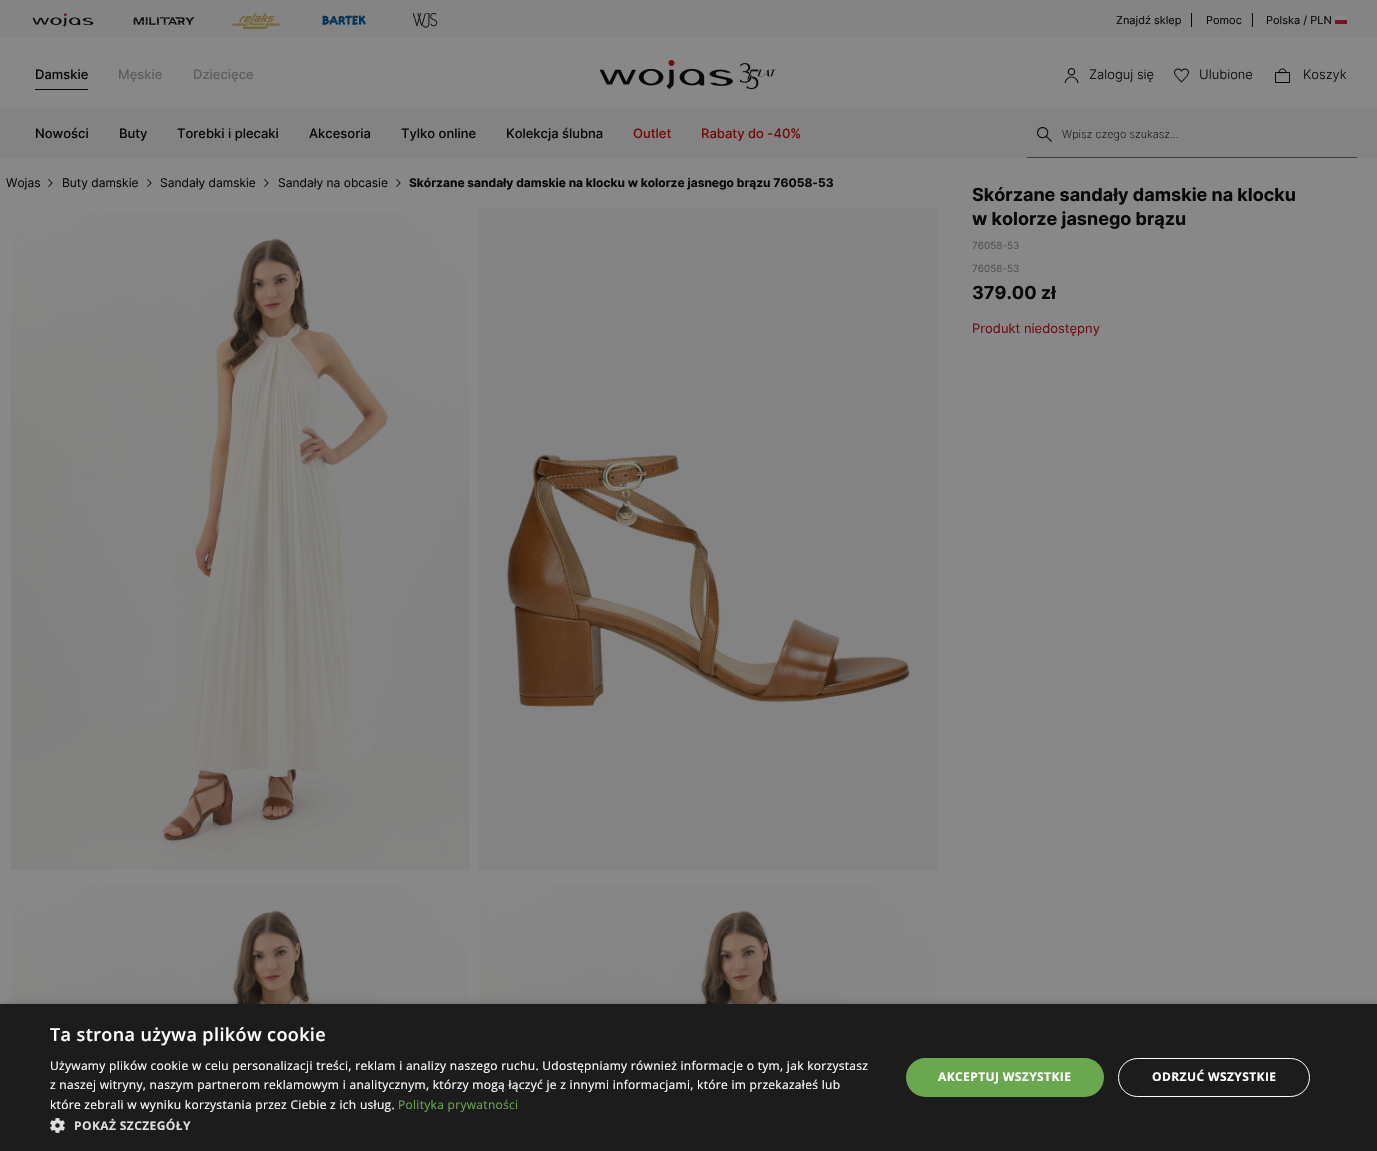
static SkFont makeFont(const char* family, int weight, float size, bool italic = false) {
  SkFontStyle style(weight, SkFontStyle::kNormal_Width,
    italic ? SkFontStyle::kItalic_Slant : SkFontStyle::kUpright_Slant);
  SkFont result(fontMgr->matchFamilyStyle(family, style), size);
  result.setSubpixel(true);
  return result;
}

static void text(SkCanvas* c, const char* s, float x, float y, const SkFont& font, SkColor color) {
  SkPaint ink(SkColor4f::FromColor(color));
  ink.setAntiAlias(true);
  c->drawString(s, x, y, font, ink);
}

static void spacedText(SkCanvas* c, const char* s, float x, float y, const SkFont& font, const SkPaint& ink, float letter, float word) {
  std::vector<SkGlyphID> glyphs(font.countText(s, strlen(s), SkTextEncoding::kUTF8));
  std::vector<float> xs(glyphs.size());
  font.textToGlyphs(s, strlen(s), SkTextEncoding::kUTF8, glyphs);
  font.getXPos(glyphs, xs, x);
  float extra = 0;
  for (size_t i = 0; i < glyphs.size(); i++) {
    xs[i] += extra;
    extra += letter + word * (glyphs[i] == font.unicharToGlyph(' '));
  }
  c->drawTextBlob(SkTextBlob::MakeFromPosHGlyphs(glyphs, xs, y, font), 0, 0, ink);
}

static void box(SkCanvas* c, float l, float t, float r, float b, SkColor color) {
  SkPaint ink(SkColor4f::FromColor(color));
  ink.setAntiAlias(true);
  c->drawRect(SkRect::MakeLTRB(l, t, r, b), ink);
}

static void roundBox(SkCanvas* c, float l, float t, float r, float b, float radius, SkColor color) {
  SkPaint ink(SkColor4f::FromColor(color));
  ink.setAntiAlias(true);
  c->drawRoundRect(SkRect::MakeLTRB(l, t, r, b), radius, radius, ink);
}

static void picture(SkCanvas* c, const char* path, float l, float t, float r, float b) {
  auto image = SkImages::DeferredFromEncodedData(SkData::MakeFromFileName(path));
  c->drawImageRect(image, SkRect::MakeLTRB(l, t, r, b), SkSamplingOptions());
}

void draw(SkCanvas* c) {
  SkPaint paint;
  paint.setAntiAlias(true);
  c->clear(0xff888888);
  box(c, 0, 0, 1377, 38, 0xff848484);
  picture(c, "img_01.png", 32, 13, 94, 27);
  picture(c, "img_02.png", 133, 17, 195, 25);
  picture(c, "img_03.png", 232, 13, 280, 29);
  picture(c, "img_04.png", 322, 15, 366, 26);
  picture(c, "img_05.png", 412, 13, 438, 28);
  SkFont face1 = makeFont("Inter", 400, 11);
  text(c, "Znajdź sklep", 1116, 24, face1, 0xff090909);
  box(c, 1191, 13, 1192, 27, 0xff090909);
  text(c, "Pomoc", 1206, 24, face1, 0xff090909);
  box(c, 1252, 13, 1253, 27, 0xff090909);
  text(c, "Polska / PLN", 1266, 24, face1, 0xff090909);
  box(c, 1335, 20, 1347, 24, 0xff771327);
  box(c, 1335, 16, 1347, 20, 0xff888888);
  SkFont face2 = makeFont("Inter", 500, 13);
  text(c, "Damskie", 35, 79, face2, 0xff090909);
  box(c, 35, 89, 88, 90, 0xff090909);
  text(c, "Męskie", 118, 79, face2, 0xff5e5e5e);
  text(c, "Dziecięce", 193, 79, face2, 0xff5e5e5e);
  picture(c, "img_06.png", 600, 59, 777, 90);
  picture(c, "img_07.png", 1064, 68, 1079, 83);
  SkFont face3 = makeFont("Inter", 300, 13);
  text(c, "Zaloguj się", 1089, 79, face3, 0xff090909);
  picture(c, "img_08.png", 1174, 68, 1189, 83);
  text(c, "Ulubione", 1199, 79, face3, 0xff090909);
  picture(c, "img_09.png", 1275, 68, 1290, 83);
  text(c, "Koszyk", 1303, 79, face3, 0xff090909);
  box(c, 0, 108, 1377, 158, 0xff838383);
  text(c, "Nowości", 35, 138, face2, 0xff090909);
  text(c, "Buty", 119, 138, face2, 0xff090909);
  text(c, "Torebki i plecaki", 177, 138, face2, 0xff090909);
  text(c, "Akcesoria", 309, 138, face2, 0xff090909);
  text(c, "Tylko online", 401, 138, face2, 0xff090909);
  text(c, "Kolekcja ślubna", 506, 138, face2, 0xff090909);
  text(c, "Outlet", 633, 138, face2, 0xff750909);
  text(c, "Rabaty do -40%", 701, 138, face2, 0xff750909);
  box(c, 1027, 157, 1357, 158, 0xff3c3c3c);
  picture(c, "img_10.png", 1037, 127, 1052, 142);
  SkFont face4 = makeFont("Inter", 200, 11);
  text(c, "Wpisz czego szukasz...", 1062, 138, face4, 0xff090909);
  SkFont face5 = makeFont("Inter", 400, 12);
  text(c, "Wojas", 6, 187, face5, 0xff090909);
  picture(c, "img_11.png", 48, 179, 53, 187);
  text(c, "Buty damskie", 62, 187, face5, 0xff090909);
  picture(c, "img_11.png", 147, 179, 152, 187);
  text(c, "Sandały damskie", 160, 187, face5, 0xff090909);
  picture(c, "img_11.png", 264, 179, 269, 187);
  text(c, "Sandały na obcasie", 278, 187, face5, 0xff090909);
  picture(c, "img_11.png", 396, 179, 401, 187);
  SkFont face6 = makeFont("Inter", 700, 12);
  text(c, "Skórzane sandały damskie na klocku w kolorze jasnego brązu 76058-53", 409, 187, face6, 0xff090909);
  picture(c, "img_12.png", 11, 211, 469, 870);
  picture(c, "img_13.png", 479, 208, 937, 870);
  picture(c, "img_14.png", 11, 883, 469, 1004);
  picture(c, "img_14.png", 479, 883, 937, 1004);
  SkFont face7 = makeFont("Inter", 700, 18);
  text(c, "Skórzane sandały damskie na klocku", 972, 201, face7, 0xff090909);
  text(c, "w kolorze jasnego brązu", 972, 225, face7, 0xff090909);
  SkFont face8 = makeFont("Inter", 400, 10);
  text(c, "76058-53", 972, 249, face8, 0xff515151);
  text(c, "76058-53", 972, 272, face8, 0xff515151);
  text(c, "379.00 zł", 972, 299, face7, 0xff090909);
  SkFont face9 = makeFont("Inter", 400, 13);
  text(c, "Produkt niedostępny", 972, 333, face9, 0xff700e11);
  paint.setColor(0x59000000);
  paint.setMaskFilter(SkMaskFilter::MakeBlur(kNormal_SkBlurStyle, 4));
  c->drawRect(SkRect::MakeLTRB(1, 1006, 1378, 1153), paint);
  paint.setMaskFilter(nullptr);
  box(c, 0, 1004, 1377, 1151, 0xff1c1c1c);
  SkFont face10 = makeFont("Open Sans", 600, 18);
  paint.setColor(0xffffffff);
  spacedText(c, "Ta strona używa plików cookie", 50, 1041, face10, paint, 0.4f, 0);
  SkFont face11 = makeFont("Open Sans", 400, 12);
  spacedText(c, "Używamy plików cookie w celu personalizacji treści, reklam i analizy naszego ruchu. Udostępniamy również informacje o tym, jak korzystasz", 50, 1070, face11, paint, 0.3f, 0);
  spacedText(c, "z naszej witryny, naszym partnerom reklamowym i analitycznym, którzy mogą łączyć je z innymi informacjami, które im przekazałeś lub", 50, 1089, face11, paint, 0.3f, 0);
  spacedText(c, "które zebrali w wyniku korzystania przez Ciebie z ich usług.", 50, 1109, face11, paint, 0.3f, 0);
  paint.setColor(0xff6aa84f);
  spacedText(c, "Polityka prywatności", 398, 1109, face11, paint, 0.3f, 0);
  picture(c, "img_15.png", 50, 1118, 65, 1133);
  SkFont face12 = makeFont("Open Sans", 700, 12);
  paint.setColor(0xffdddddd);
  spacedText(c, "POKAŻ SZCZEGÓŁY", 74, 1130, face12, paint, 0.4f, 0);
  roundBox(c, 906, 1058, 1104, 1097, 19.5f, 0xff6aa84f);
  paint.setColor(0xffffffff);
  spacedText(c, "AKCEPTUJ WSZYSTKIE", 938, 1081, face12, paint, 0.4f, 0);
  paint.setStyle(SkPaint::kStroke_Style);
  paint.setStrokeWidth(1);
  c->drawRoundRect(SkRect::MakeLTRB(1118.5f, 1058.5f, 1309.5f, 1096.5f), 19, 19, paint);
  paint.setStyle(SkPaint::kFill_Style);
  spacedText(c, "ODRZUĆ WSZYSTKIE", 1152, 1081, face12, paint, 0.4f, 0);
}
